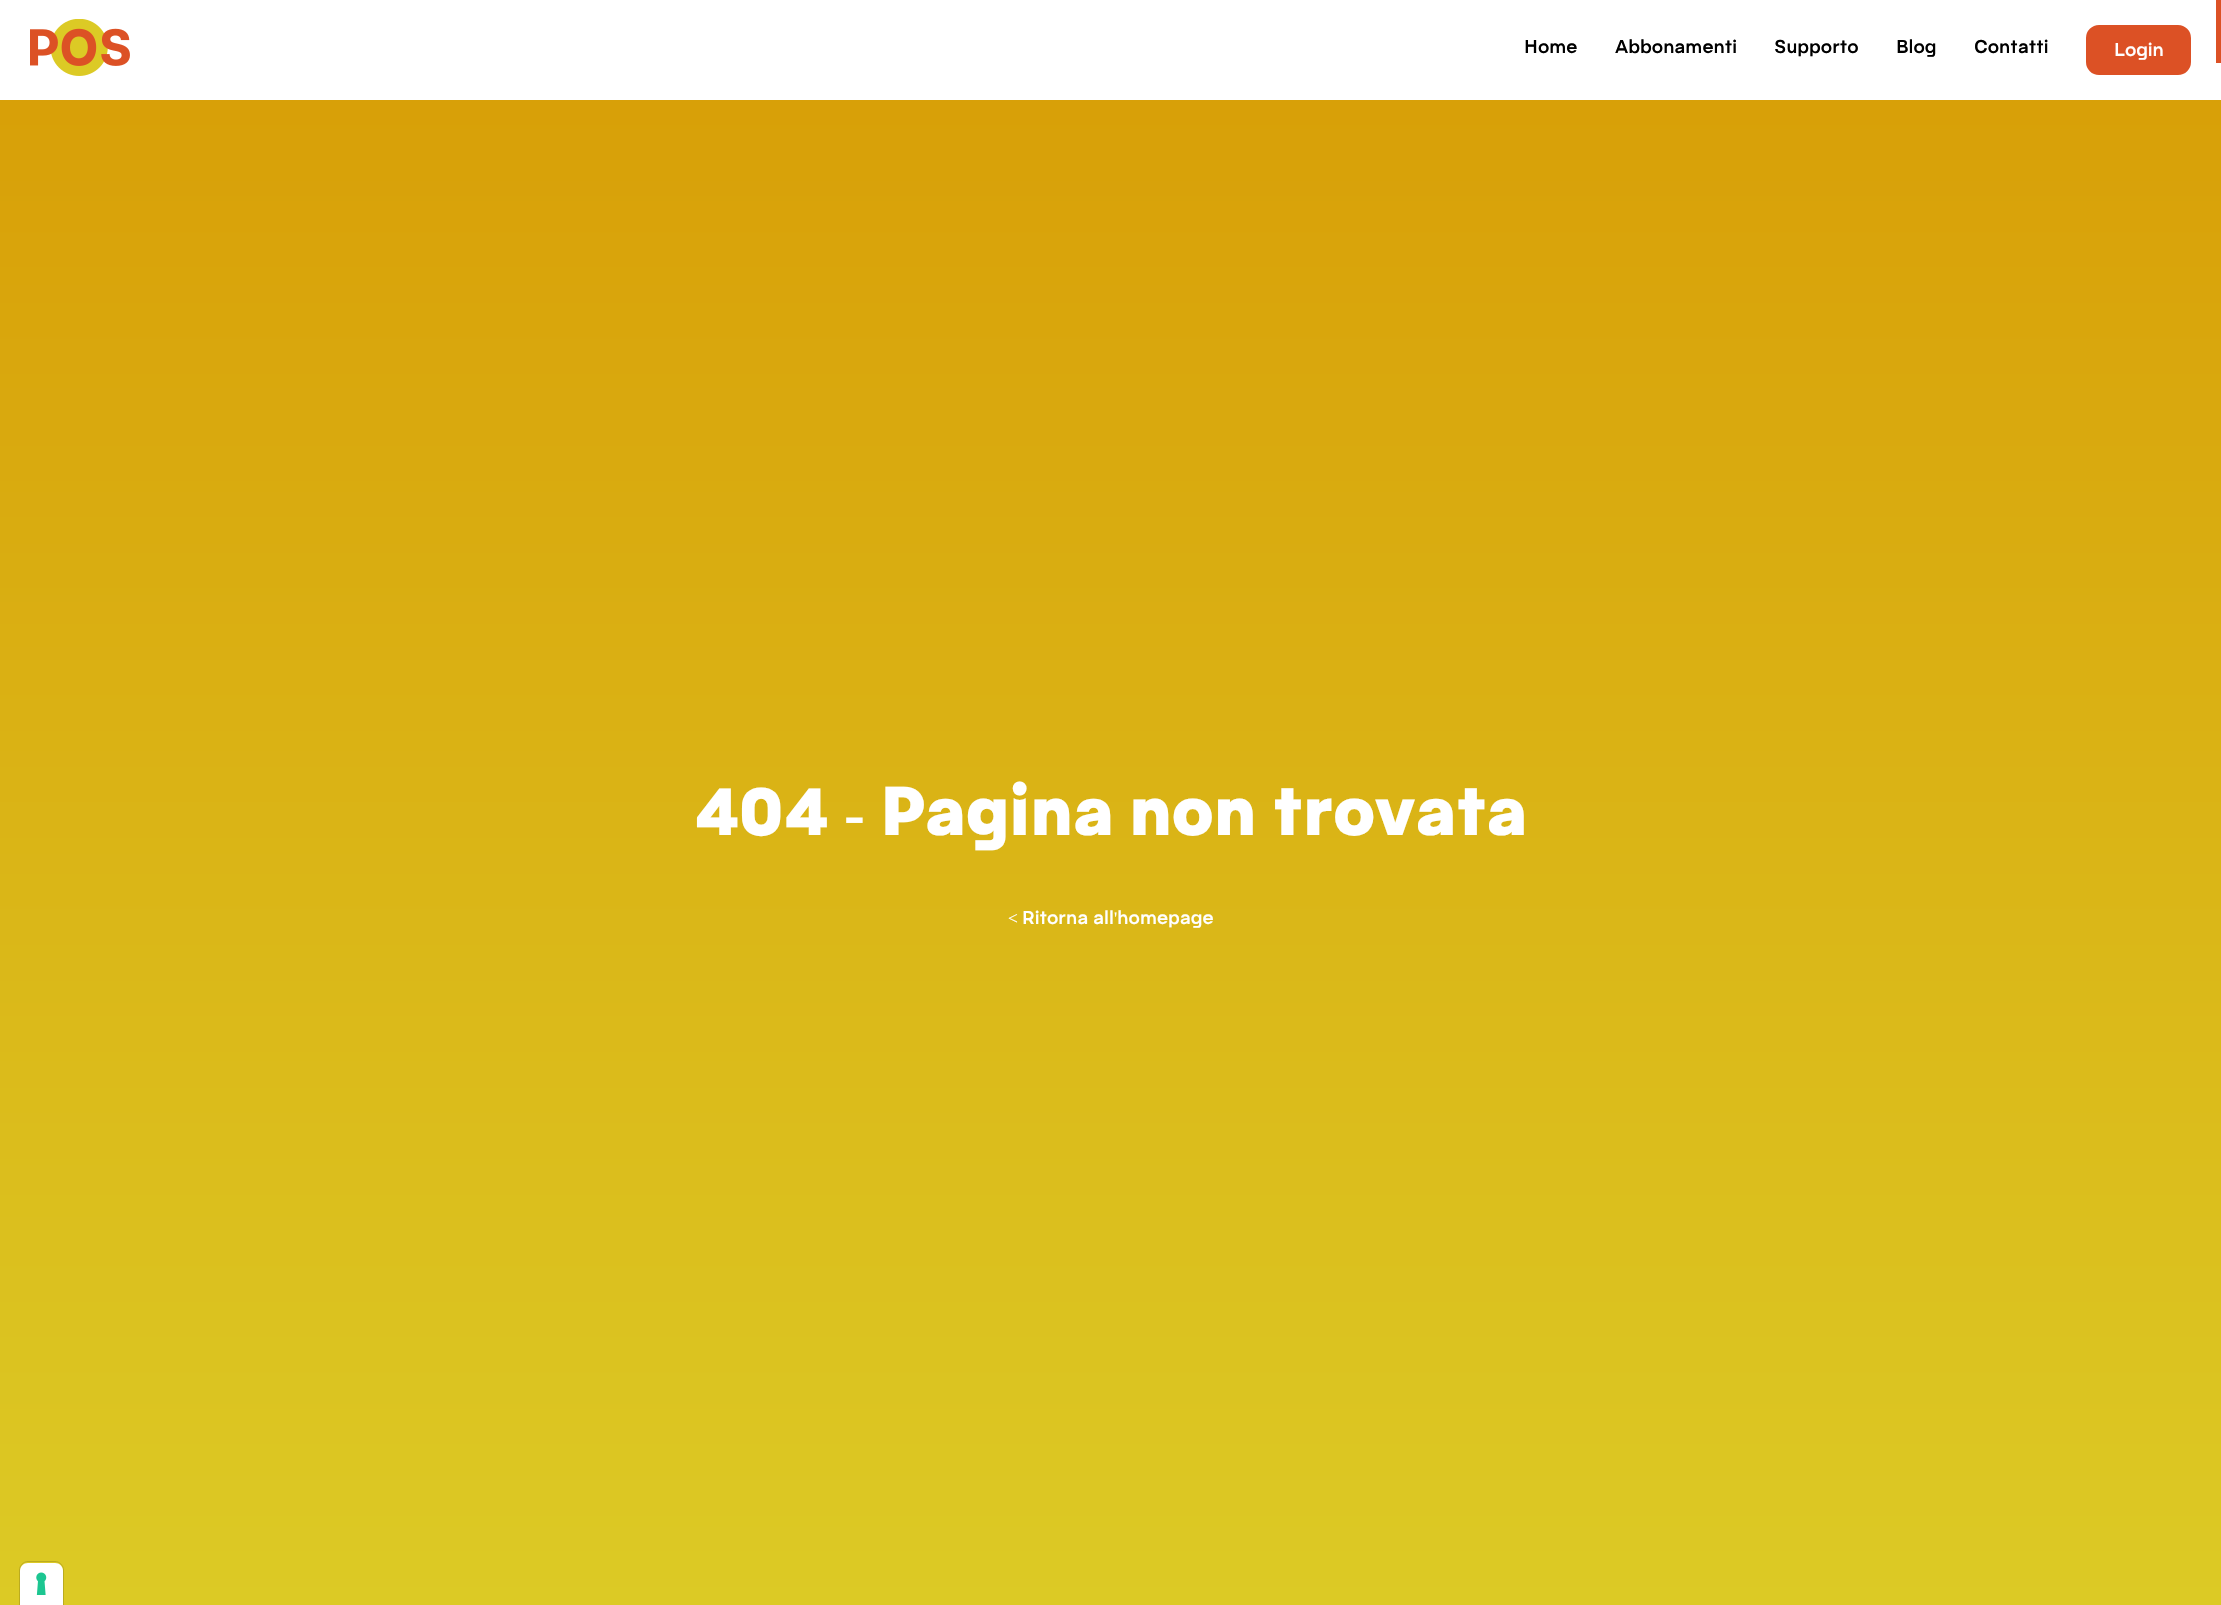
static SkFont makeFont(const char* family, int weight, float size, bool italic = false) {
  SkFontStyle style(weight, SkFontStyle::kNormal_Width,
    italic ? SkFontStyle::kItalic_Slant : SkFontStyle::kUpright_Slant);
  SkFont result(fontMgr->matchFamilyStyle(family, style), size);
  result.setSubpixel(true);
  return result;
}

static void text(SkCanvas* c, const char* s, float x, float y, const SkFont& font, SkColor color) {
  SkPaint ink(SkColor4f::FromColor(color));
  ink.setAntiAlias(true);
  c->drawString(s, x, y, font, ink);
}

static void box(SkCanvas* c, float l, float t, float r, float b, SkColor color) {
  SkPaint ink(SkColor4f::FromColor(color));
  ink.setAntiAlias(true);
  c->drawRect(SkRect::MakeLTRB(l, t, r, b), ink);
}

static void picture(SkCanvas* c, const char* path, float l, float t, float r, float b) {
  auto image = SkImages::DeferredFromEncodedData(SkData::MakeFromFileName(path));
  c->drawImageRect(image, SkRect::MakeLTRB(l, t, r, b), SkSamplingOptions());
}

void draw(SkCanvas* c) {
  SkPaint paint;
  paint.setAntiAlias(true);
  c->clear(0xffffffff);
  picture(c, "img_01.png", 30, 19, 130, 76);
  SkFont face1 = makeFont("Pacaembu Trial", 400, 17.5f);
  text(c, "Home", 1524, 53, face1, 0xff000000);
  text(c, "Abbonamenti", 1615, 53, face1, 0xff000000);
  text(c, "Supporto", 1774, 53, face1, 0xff000000);
  text(c, "Blog", 1896, 53, face1, 0xff000000);
  text(c, "Contatti", 1974, 53, face1, 0xff000000);
  paint.setColor(0xffdc5125);
  c->drawRoundRect(SkRect::MakeLTRB(2087.5f, 26.5f, 2189.5f, 73.5f), 11.5f, 11.5f, paint);
  paint.setStyle(SkPaint::kStroke_Style);
  paint.setStrokeWidth(3);
  c->drawRoundRect(SkRect::MakeLTRB(2087.5f, 26.5f, 2189.5f, 73.5f), 11.5f, 11.5f, paint);
  text(c, "Login", 2114, 56, face1, 0xffffffff);
  paint.setStyle(SkPaint::kFill_Style);
  {
    const SkColor colors[] = {0xffdcca25, 0xffd89d06};
    const float stops[] = {0, 1};
    const SkPoint ends[] = {{1111, 1605}, {1111, 0}};
    paint.setShader(SkGradientShader::MakeLinear(ends, colors, stops, 2, SkTileMode::kClamp));
    paint.setAlpha(255);
  }
  c->drawRect(SkRect::MakeLTRB(0, 100, 2221, 1605), paint);
  box(c, 2216, 0, 2221, 63, 0xffdc5125);
  SkFont face2 = makeFont("Pacaembu Trial", 900, 62.5f);
  text(c, "404", 694, 835, face2, 0xffffffff);
  SkFont face3 = makeFont("Liberation Serif", 700, 62.5f);
  text(c, "-", 844, 835, face3, 0xffffffff);
  text(c, "Pagina", 881, 835, face2, 0xffffffff);
  text(c, "non", 1129, 835, face2, 0xffffffff);
  text(c, "trovata", 1273, 835, face2, 0xffffffff);
  SkFont face4 = makeFont("Liberation Serif", 400, 17.5f);
  text(c, "<", 1008, 924, face4, 0xffffffff);
  text(c, "Ritorna", 1022, 924, face1, 0xffffffff);
  text(c, "all", 1093, 924, face1, 0xffffffff);
  text(c, "'", 1114, 924, face4, 0xffffffff);
  text(c, "homepage", 1117, 924, face1, 0xffffffff);
  paint.setStyle(SkPaint::kStroke_Style);
  paint.setStrokeWidth(1);
  paint.setShader(nullptr);
  paint.setColor(0xffbbab1f);
  c->drawPath(SkPathBuilder().moveTo(28, 1561.5f).lineTo(55, 1561.5f).cubicTo(59.5f, 1561.5f, 63.5f, 1565.5f, 63.5f, 1570).lineTo(63.5f, 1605.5f).lineTo(19.5f, 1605.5f).lineTo(19.5f, 1570).cubicTo(19.5f, 1565.5f, 23.5f, 1561.5f, 28, 1561.5f).close().detach(), paint);
  paint.setStyle(SkPaint::kFill_Style);
  paint.setColor(0xffffffff);
  c->drawPath(SkPathBuilder().moveTo(28, 1563).lineTo(55, 1563).cubicTo(59.5f, 1563, 63, 1566.5f, 63, 1571).lineTo(63, 1605).lineTo(20, 1605).lineTo(20, 1571).cubicTo(20, 1566.5f, 23.5f, 1563, 28, 1563).close().detach(), paint);
  picture(c, "img_02.png", 36, 1572, 47, 1595);
}
